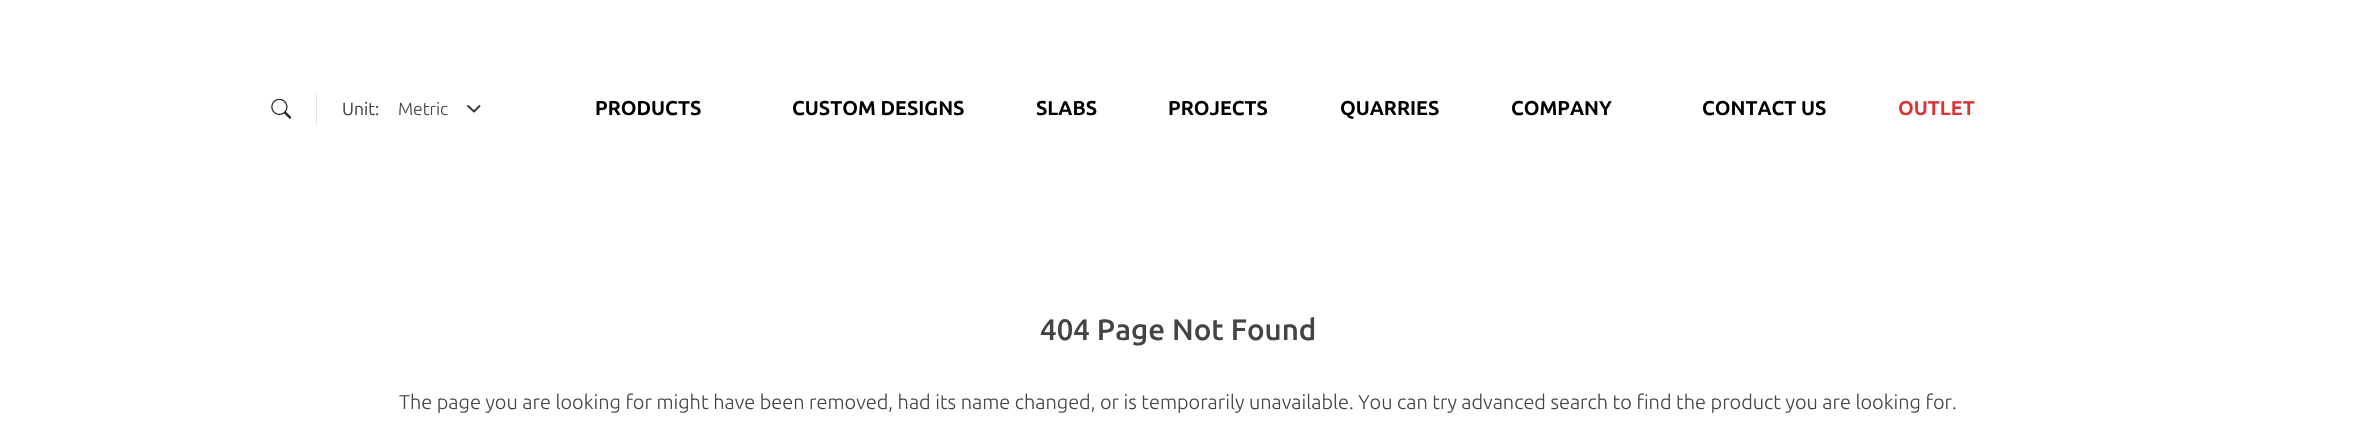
static SkFont makeFont(const char* family, int weight, float size, bool italic = false) {
  SkFontStyle style(weight, SkFontStyle::kNormal_Width,
    italic ? SkFontStyle::kItalic_Slant : SkFontStyle::kUpright_Slant);
  SkFont result(fontMgr->matchFamilyStyle(family, style), size);
  result.setSubpixel(true);
  return result;
}

static void text(SkCanvas* c, const char* s, float x, float y, const SkFont& font, SkColor color) {
  SkPaint ink(SkColor4f::FromColor(color));
  ink.setAntiAlias(true);
  c->drawString(s, x, y, font, ink);
}

static void box(SkCanvas* c, float l, float t, float r, float b, SkColor color) {
  SkPaint ink(SkColor4f::FromColor(color));
  ink.setAntiAlias(true);
  c->drawRect(SkRect::MakeLTRB(l, t, r, b), ink);
}

static void picture(SkCanvas* c, const char* path, float l, float t, float r, float b) {
  auto image = SkImages::DeferredFromEncodedData(SkData::MakeFromFileName(path));
  c->drawImageRect(image, SkRect::MakeLTRB(l, t, r, b), SkSamplingOptions());
}

void draw(SkCanvas* c) {
  SkPaint paint;
  paint.setAntiAlias(true);
  c->clear(0xffffffff);
  picture(c, "img_01.png", 271, 99, 291, 119);
  box(c, 316, 94, 317, 125, 0xffdee2e6);
  SkFont face1 = makeFont("Ubuntu Sans", 400, 17.5f);
  text(c, "Unit:", 342, 115, face1, 0xff444444);
  paint.setStyle(SkPaint::kStroke_Style);
  paint.setStrokeWidth(1.9f);
  paint.setStrokeCap(SkPaint::kRound_Cap);
  paint.setStrokeJoin(SkPaint::kRound_Join);
  paint.setColor(0xff343a40);
  c->drawPath(SkPathBuilder().moveTo(468, 106).lineTo(474, 111.5f).lineTo(479.5f, 106).detach(), paint);
  SkFont face2 = makeFont("Ubuntu Sans", 300, 17.5f);
  text(c, "Metric", 398, 115, face2, 0xff444444);
  SkFont face3 = makeFont("Ubuntu Sans", 700, 20);
  text(c, "PRODUCTS", 595, 115, face3, 0xff000000);
  text(c, "CUSTOM DESIGNS", 792, 115, face3, 0xff000000);
  text(c, "SLABS", 1036, 115, face3, 0xff000000);
  text(c, "PROJECTS", 1168, 115, face3, 0xff000000);
  text(c, "QUARRIES", 1340, 115, face3, 0xff000000);
  text(c, "COMPANY", 1511, 115, face3, 0xff000000);
  text(c, "CONTACT US", 1702, 115, face3, 0xff000000);
  text(c, "OUTLET", 1898, 115, face3, 0xffdd3333);
  SkFont face4 = makeFont("Ubuntu Sans", 600, 29.5f);
  text(c, "404 Page Not Found", 1040, 340, face4, 0xff444444);
  SkFont face5 = makeFont("Ubuntu Sans", 300, 20);
  text(c, "The page you are looking for might have been removed, had its name changed, or is temporarily unavailable. You can try advanced search to find the product you are looking for.", 399, 409, face5, 0xff444444);
}
